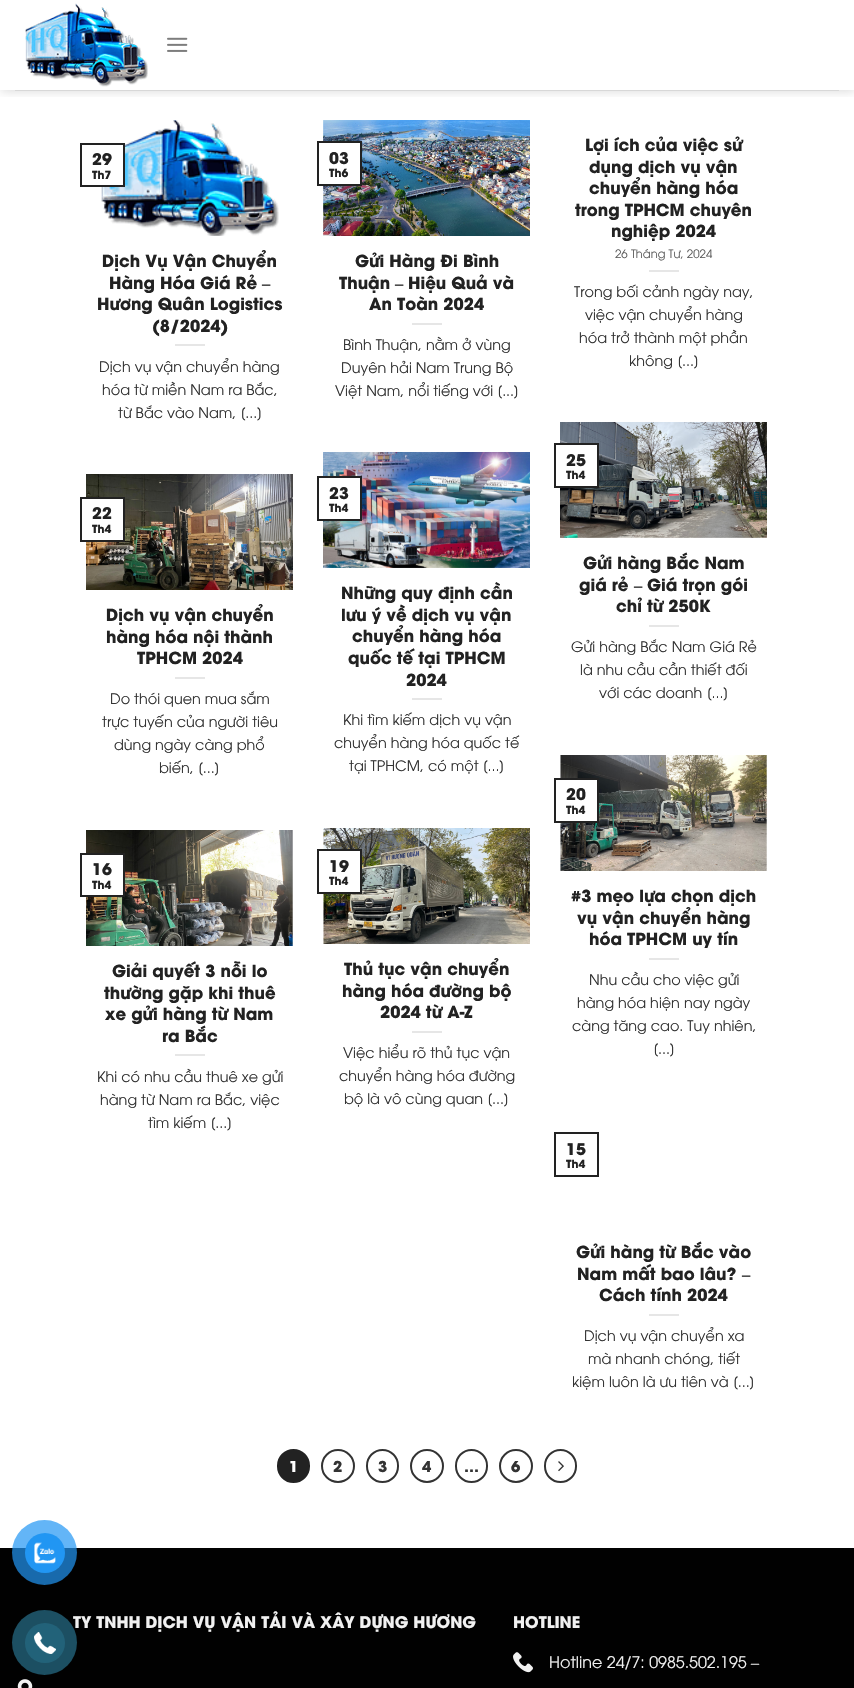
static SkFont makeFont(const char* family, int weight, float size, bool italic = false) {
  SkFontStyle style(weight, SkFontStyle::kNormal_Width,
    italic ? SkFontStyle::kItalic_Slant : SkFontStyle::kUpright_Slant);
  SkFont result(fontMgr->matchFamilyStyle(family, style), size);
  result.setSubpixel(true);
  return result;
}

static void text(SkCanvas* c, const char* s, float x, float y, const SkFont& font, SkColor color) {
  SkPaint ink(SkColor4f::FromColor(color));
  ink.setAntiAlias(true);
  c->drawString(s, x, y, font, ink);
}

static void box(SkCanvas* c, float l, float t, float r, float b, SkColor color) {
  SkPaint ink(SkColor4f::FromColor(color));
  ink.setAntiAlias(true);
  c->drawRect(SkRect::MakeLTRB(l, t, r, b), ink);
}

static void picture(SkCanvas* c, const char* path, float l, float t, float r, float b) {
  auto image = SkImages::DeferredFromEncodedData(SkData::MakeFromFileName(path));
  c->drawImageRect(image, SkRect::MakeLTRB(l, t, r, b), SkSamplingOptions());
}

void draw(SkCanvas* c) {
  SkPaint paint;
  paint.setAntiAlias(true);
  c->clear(0xffffffff);
  c->save();
  c->clipRect(SkRect::MakeLTRB(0, 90, 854, 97));
  paint.setColor(0x26000000);
  paint.setMaskFilter(SkMaskFilter::MakeBlur(kNormal_SkBlurStyle, 5));
  c->drawRect(SkRect::MakeLTRB(1, 1, 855, 91), paint);
  paint.setMaskFilter(nullptr);
  c->restore();
  picture(c, "img_01.png", 25, 3, 148, 87);
  picture(c, "img_02.png", 167, 37, 188, 52);
  box(c, 15, 90, 839, 91, 0xffd8d8d8);
  picture(c, "img_03.png", 101, 120, 279, 236);
  box(c, 101, 145, 123, 185, 0xffffffff);
  paint.setStyle(SkPaint::kStroke_Style);
  paint.setStrokeWidth(2);
  paint.setColor(0xff222222);
  c->drawRect(SkRect::MakeLTRB(81, 144, 124, 186), paint);
  SkFont face1 = makeFont("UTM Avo", 700, 16);
  text(c, "29", 92, 165, face1, 0xff222222);
  SkFont face2 = makeFont("UTM Avo", 700, 11);
  text(c, "Th7", 92, 179, face2, 0xff222222);
  SkFont face3 = makeFont("UTM Avo", 700, 16.5f);
  text(c, "Dịch Vụ Vận Chuyển", 102, 267, face3, 0xff222222);
  text(c, "Hàng Hóa Giá Rẻ", 109, 289, face3, 0xff222222);
  SkFont face4 = makeFont("Liberation Serif", 700, 16.5f);
  text(c, "–", 262, 289, face4, 0xff222222);
  text(c, "Hương Quân Logistics", 97, 310, face3, 0xff222222);
  text(c, "(8/2024)", 152, 332, face3, 0xff222222);
  box(c, 175, 344, 205, 346, 0xffe6e6e6);
  SkFont face5 = makeFont("UTM Avo", 400, 14.4f);
  text(c, "Dịch vụ vận chuyển hàng", 99, 372, face5, 0xff333333);
  text(c, "hóa từ miền Nam ra Bắc,", 102, 395, face5, 0xff333333);
  text(c, "từ Bắc vào Nam, [...]", 118, 418, face5, 0xff333333);
  picture(c, "img_04.png", 323, 120, 530, 236);
  box(c, 323, 143, 360, 184, 0xffffffff);
  c->drawRect(SkRect::MakeLTRB(318, 142, 361, 185), paint);
  text(c, "03", 329, 164, face1, 0xff222222);
  text(c, "Th6", 329, 177, face2, 0xff222222);
  text(c, "Gửi Hàng Đi Bình", 355, 267, face3, 0xff222222);
  text(c, "Thuận", 339, 289, face3, 0xff222222);
  text(c, "–", 395, 289, face4, 0xff222222);
  text(c, "Hiệu Quả và", 408, 289, face3, 0xff222222);
  text(c, "An Toàn 2024", 369, 310, face3, 0xff222222);
  box(c, 412, 323, 442, 325, 0xffe6e6e6);
  text(c, "Bình Thuận, nằm ở vùng", 343, 350, face5, 0xff333333);
  text(c, "Duyên hải Nam Trung Bộ", 341, 373, face5, 0xff333333);
  text(c, "Việt Nam, nổi tiếng với [...]", 335, 396, face5, 0xff333333);
  text(c, "Lợi ích của việc sử", 585, 151, face3, 0xff222222);
  text(c, "dụng dịch vụ vận", 589, 173, face3, 0xff222222);
  text(c, "chuyển hàng hóa", 589, 194, face3, 0xff222222);
  text(c, "trong TPHCM chuyên", 575, 216, face3, 0xff222222);
  text(c, "nghiệp 2024", 611, 237, face3, 0xff222222);
  SkFont face6 = makeFont("UTM Avo", 400, 11.5f);
  text(c, "26 Tháng Tư, 2024", 615, 258, face6, 0xff5c5c5c);
  box(c, 649, 270, 679, 272, 0xffe6e6e6);
  text(c, "Trong bối cảnh ngày nay,", 574, 297, face5, 0xff333333);
  text(c, "việc vận chuyển hàng", 585, 320, face5, 0xff333333);
  text(c, "hóa trở thành một phần", 579, 343, face5, 0xff333333);
  text(c, "không [...]", 629, 366, face5, 0xff333333);
  picture(c, "img_05.png", 86, 474, 293, 590);
  box(c, 86, 499, 123, 540, 0xffffffff);
  c->drawRect(SkRect::MakeLTRB(81, 498, 124, 541), paint);
  text(c, "22", 92, 519, face1, 0xff222222);
  text(c, "Th4", 92, 533, face2, 0xff222222);
  text(c, "Dịch vụ vận chuyển", 106, 621, face3, 0xff222222);
  text(c, "hàng hóa nội thành", 106, 643, face3, 0xff222222);
  text(c, "TPHCM 2024", 137, 664, face3, 0xff222222);
  box(c, 175, 677, 205, 679, 0xffe6e6e6);
  text(c, "Do thói quen mua sắm", 110, 704, face5, 0xff333333);
  text(c, "trực tuyến của người tiêu", 102, 727, face5, 0xff333333);
  text(c, "dùng ngày càng phổ", 114, 750, face5, 0xff333333);
  text(c, "biến, [...]", 159, 773, face5, 0xff333333);
  picture(c, "img_06.png", 323, 452, 530, 568);
  box(c, 323, 478, 360, 519, 0xffffffff);
  c->drawRect(SkRect::MakeLTRB(318, 477, 361, 520), paint);
  text(c, "23", 329, 499, face1, 0xff222222);
  text(c, "Th4", 329, 512, face2, 0xff222222);
  text(c, "Những quy định cần", 341, 599, face3, 0xff222222);
  text(c, "lưu ý về dịch vụ vận", 341, 621, face3, 0xff222222);
  text(c, "chuyển hàng hóa", 352, 642, face3, 0xff222222);
  text(c, "quốc tế tại TPHCM", 348, 664, face3, 0xff222222);
  text(c, "2024", 406, 686, face3, 0xff222222);
  box(c, 412, 698, 442, 700, 0xffe6e6e6);
  text(c, "Khi tìm kiếm dịch vụ vận", 343, 725, face5, 0xff333333);
  text(c, "chuyển hàng hóa quốc tế", 334, 748, face5, 0xff333333);
  text(c, "tại TPHCM, có một [...]", 349, 771, face5, 0xff333333);
  picture(c, "img_07.png", 560, 422, 767, 538);
  box(c, 560, 445, 597, 486, 0xffffffff);
  c->drawRect(SkRect::MakeLTRB(555, 444, 598, 487), paint);
  text(c, "25", 566, 466, face1, 0xff222222);
  text(c, "Th4", 566, 479, face2, 0xff222222);
  text(c, "Gửi hàng Bắc Nam", 583, 569, face3, 0xff222222);
  text(c, "giá rẻ", 579, 591, face3, 0xff222222);
  text(c, "–", 634, 591, face4, 0xff222222);
  text(c, "Giá trọn gói", 647, 591, face3, 0xff222222);
  text(c, "chỉ từ 250K", 616, 612, face3, 0xff222222);
  box(c, 649, 625, 679, 627, 0xffe6e6e6);
  text(c, "Gửi hàng Bắc Nam Giá Rẻ", 571, 652, face5, 0xff333333);
  text(c, "là nhu cầu cần thiết đối", 580, 675, face5, 0xff333333);
  text(c, "với các doanh [...]", 599, 698, face5, 0xff333333);
  picture(c, "img_08.png", 86, 830, 293, 946);
  box(c, 86, 855, 123, 895, 0xffffffff);
  c->drawRect(SkRect::MakeLTRB(81, 854, 124, 896), paint);
  text(c, "16", 92, 875, face1, 0xff222222);
  text(c, "Th4", 92, 889, face2, 0xff222222);
  text(c, "Giải quyết 3 nỗi lo", 112, 977, face3, 0xff222222);
  text(c, "thường gặp khi thuê", 104, 999, face3, 0xff222222);
  text(c, "xe gửi hàng từ Nam", 105, 1020, face3, 0xff222222);
  text(c, "ra Bắc", 162, 1042, face3, 0xff222222);
  box(c, 175, 1054, 205, 1056, 0xffe6e6e6);
  text(c, "Khi có nhu cầu thuê xe gửi", 97, 1082, face5, 0xff333333);
  text(c, "hàng từ Nam ra Bắc, việc", 100, 1105, face5, 0xff333333);
  text(c, "tìm kiếm [...]", 148, 1128, face5, 0xff333333);
  picture(c, "img_09.png", 323, 828, 530, 944);
  box(c, 323, 851, 360, 892, 0xffffffff);
  c->drawRect(SkRect::MakeLTRB(318, 850, 361, 893), paint);
  text(c, "19", 329, 872, face1, 0xff222222);
  text(c, "Th4", 329, 885, face2, 0xff222222);
  text(c, "Thủ tục vận chuyển", 344, 975, face3, 0xff222222);
  text(c, "hàng hóa đường bộ", 342, 997, face3, 0xff222222);
  text(c, "2024 từ A-Z", 380, 1018, face3, 0xff222222);
  box(c, 412, 1031, 442, 1033, 0xffe6e6e6);
  text(c, "Việc hiểu rõ thủ tục vận", 343, 1058, face5, 0xff333333);
  text(c, "chuyển hàng hóa đường", 339, 1081, face5, 0xff333333);
  text(c, "bộ là vô cùng quan [...]", 344, 1104, face5, 0xff333333);
  picture(c, "img_10.png", 560, 755, 767, 871);
  box(c, 560, 780, 597, 821, 0xffffffff);
  c->drawRect(SkRect::MakeLTRB(555, 779, 598, 822), paint);
  text(c, "20", 566, 800, face1, 0xff222222);
  text(c, "Th4", 566, 814, face2, 0xff222222);
  text(c, "#3 mẹo lựa chọn dịch", 571, 902, face3, 0xff222222);
  text(c, "vụ vận chuyển hàng", 577, 924, face3, 0xff222222);
  text(c, "hóa TPHCM uy tín", 589, 945, face3, 0xff222222);
  box(c, 649, 958, 679, 960, 0xffe6e6e6);
  text(c, "Nhu cầu cho việc gửi", 589, 985, face5, 0xff333333);
  text(c, "hàng hóa hiện nay ngày", 577, 1008, face5, 0xff333333);
  text(c, "càng tăng cao. Tuy nhiên,", 572, 1031, face5, 0xff333333);
  text(c, "[...]", 653, 1054, face5, 0xff333333);
  c->drawRect(SkRect::MakeLTRB(555, 1133, 598, 1176), paint);
  text(c, "15", 566, 1155, face1, 0xff222222);
  text(c, "Th4", 566, 1168, face2, 0xff222222);
  text(c, "Gửi hàng từ Bắc vào", 576, 1258, face3, 0xff222222);
  text(c, "Nam mất bao lâu?", 577, 1280, face3, 0xff222222);
  text(c, "–", 742, 1280, face4, 0xff222222);
  text(c, "Cách tính 2024", 599, 1301, face3, 0xff222222);
  box(c, 649, 1314, 679, 1316, 0xffe6e6e6);
  text(c, "Dịch vụ vận chuyển xa", 584, 1341, face5, 0xff333333);
  text(c, "mà nhanh chóng, tiết", 588, 1364, face5, 0xff333333);
  text(c, "kiệm luôn là ưu tiên và [...]", 572, 1387, face5, 0xff333333);
  paint.setStyle(SkPaint::kFill_Style);
  c->drawRoundRect(SkRect::MakeLTRB(278, 1450, 309, 1482), 15.5f, 15.5f, paint);
  paint.setStyle(SkPaint::kStroke_Style);
  c->drawRoundRect(SkRect::MakeLTRB(278, 1450, 309, 1482), 15.5f, 15.5f, paint);
  SkFont face7 = makeFont("UTM Avo", 700, 15);
  text(c, "1", 289, 1472, face7, 0xffffffff);
  paint.setColor(0xff333333);
  c->drawCircle(338, 1466, 16, paint);
  text(c, "2", 333, 1472, face7, 0xff333333);
  c->drawRoundRect(SkRect::MakeLTRB(367, 1450, 398, 1482), 15.5f, 15.5f, paint);
  text(c, "3", 378, 1472, face7, 0xff333333);
  c->drawCircle(427, 1466, 16, paint);
  text(c, "4", 422, 1472, face7, 0xff333333);
  c->drawRoundRect(SkRect::MakeLTRB(456, 1450, 487, 1482), 15.5f, 15.5f, paint);
  text(c, "…", 464, 1472, face7, 0xff333333);
  c->drawCircle(516, 1466, 16, paint);
  text(c, "6", 511, 1472, face7, 0xff333333);
  c->drawRoundRect(SkRect::MakeLTRB(545, 1450, 576, 1482), 15.5f, 15.5f, paint);
  picture(c, "img_11.png", 558, 1461, 564, 1472);
  box(c, 0, 1548, 854, 1688, 0xff010101);
  paint.setStyle(SkPaint::kFill_Style);
  paint.setColor(0xb32196f3);
  c->drawCircle(44.5f, 1552.5f, 32.5f, paint);
  paint.setColor(0xff2196f3);
  c->drawCircle(45, 1553, 20, paint);
  picture(c, "img_12.png", 34, 1542, 56, 1564);
  text(c, "TY TNHH DỊCH VỤ VẬN TẢI VÀ XÂY DỰNG HƯƠNG", 73, 1628, face1, 0xfff1f1f1);
  paint.setColor(0xcc226279);
  c->drawCircle(44.5f, 1642.5f, 32.5f, paint);
  paint.setColor(0xff226279);
  c->drawCircle(45, 1643, 20, paint);
  picture(c, "img_13.png", 34, 1632, 56, 1654);
  picture(c, "img_14.png", 17, 1679, 33, 1688);
  text(c, "HOTLINE", 513, 1628, face1, 0xfff1f1f1);
  picture(c, "img_15.png", 513, 1652, 533, 1673);
  SkFont face8 = makeFont("UTM Avo", 400, 16);
  text(c, "Hotline 24/7: 0985.502.195", 549, 1668, face8, 0xfff1f1f1);
  SkFont face9 = makeFont("Liberation Serif", 400, 16);
  text(c, "–", 751, 1668, face9, 0xfff1f1f1);
}
